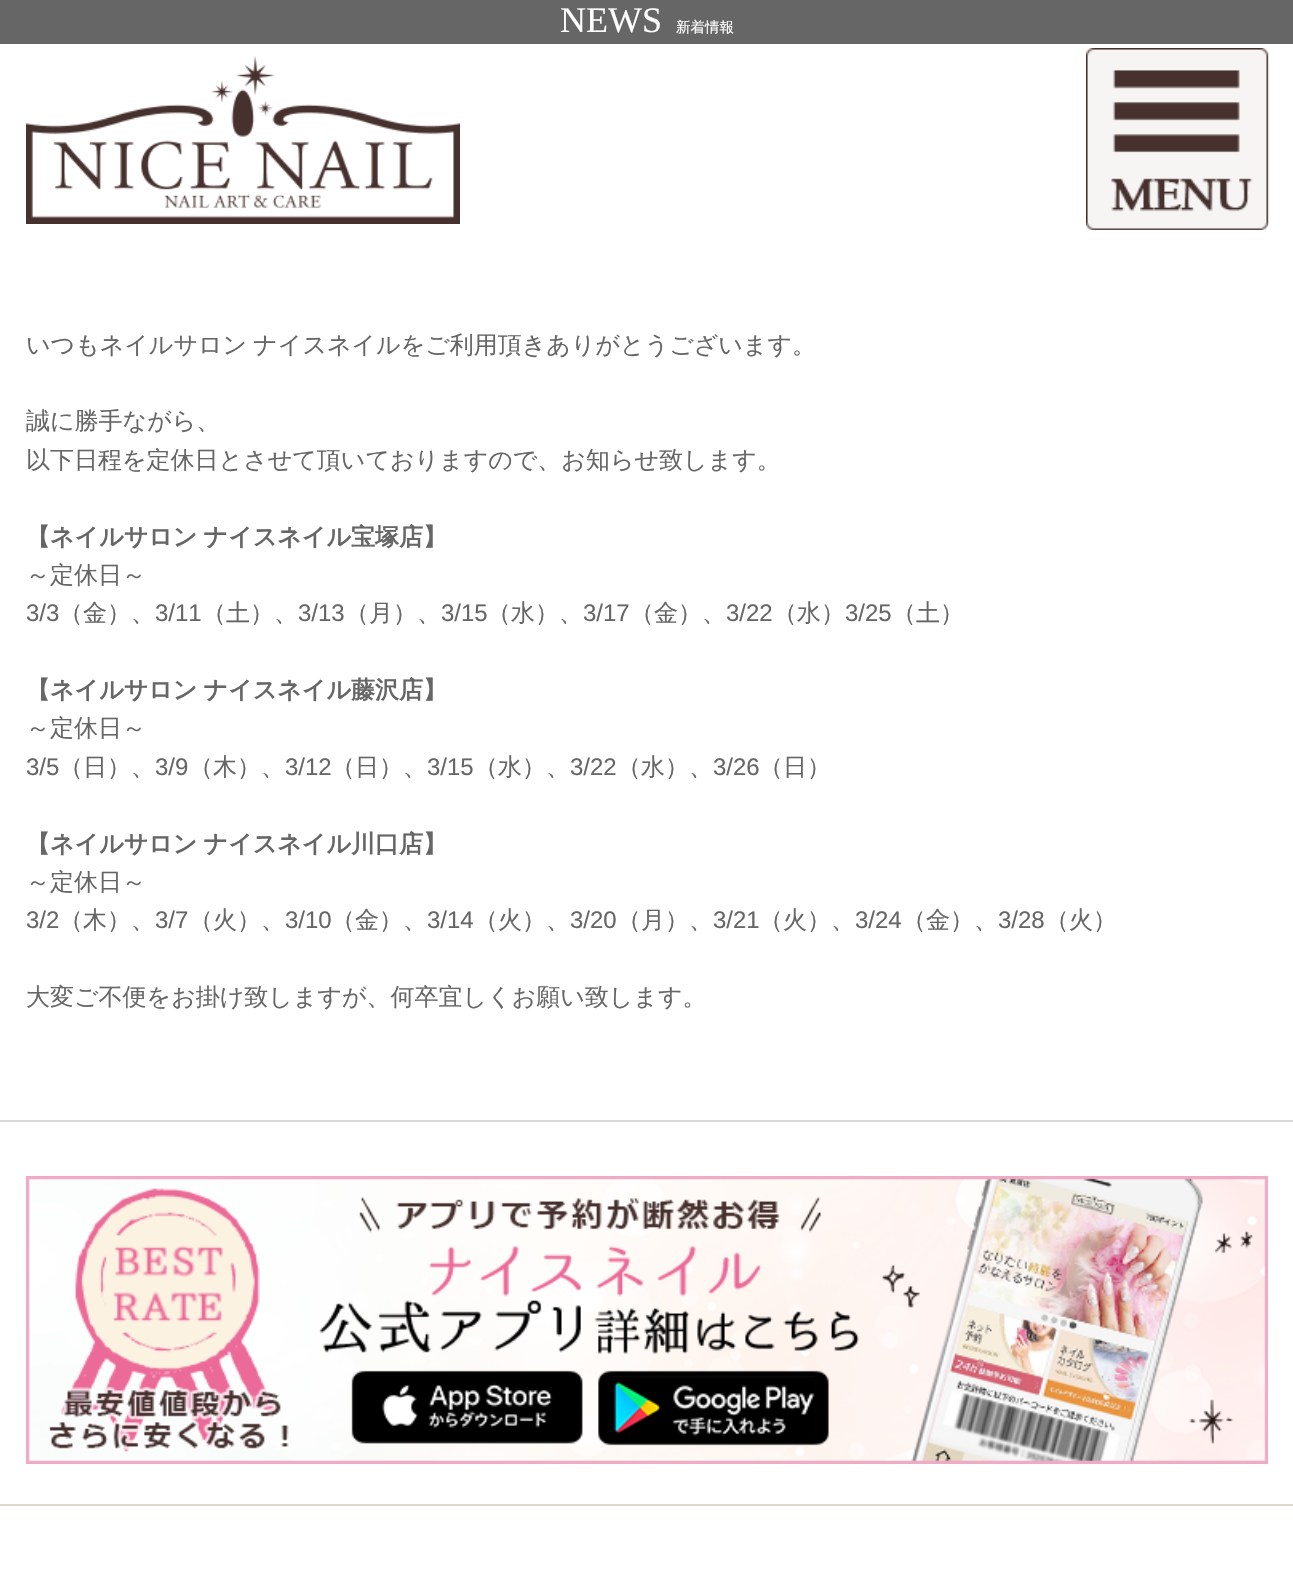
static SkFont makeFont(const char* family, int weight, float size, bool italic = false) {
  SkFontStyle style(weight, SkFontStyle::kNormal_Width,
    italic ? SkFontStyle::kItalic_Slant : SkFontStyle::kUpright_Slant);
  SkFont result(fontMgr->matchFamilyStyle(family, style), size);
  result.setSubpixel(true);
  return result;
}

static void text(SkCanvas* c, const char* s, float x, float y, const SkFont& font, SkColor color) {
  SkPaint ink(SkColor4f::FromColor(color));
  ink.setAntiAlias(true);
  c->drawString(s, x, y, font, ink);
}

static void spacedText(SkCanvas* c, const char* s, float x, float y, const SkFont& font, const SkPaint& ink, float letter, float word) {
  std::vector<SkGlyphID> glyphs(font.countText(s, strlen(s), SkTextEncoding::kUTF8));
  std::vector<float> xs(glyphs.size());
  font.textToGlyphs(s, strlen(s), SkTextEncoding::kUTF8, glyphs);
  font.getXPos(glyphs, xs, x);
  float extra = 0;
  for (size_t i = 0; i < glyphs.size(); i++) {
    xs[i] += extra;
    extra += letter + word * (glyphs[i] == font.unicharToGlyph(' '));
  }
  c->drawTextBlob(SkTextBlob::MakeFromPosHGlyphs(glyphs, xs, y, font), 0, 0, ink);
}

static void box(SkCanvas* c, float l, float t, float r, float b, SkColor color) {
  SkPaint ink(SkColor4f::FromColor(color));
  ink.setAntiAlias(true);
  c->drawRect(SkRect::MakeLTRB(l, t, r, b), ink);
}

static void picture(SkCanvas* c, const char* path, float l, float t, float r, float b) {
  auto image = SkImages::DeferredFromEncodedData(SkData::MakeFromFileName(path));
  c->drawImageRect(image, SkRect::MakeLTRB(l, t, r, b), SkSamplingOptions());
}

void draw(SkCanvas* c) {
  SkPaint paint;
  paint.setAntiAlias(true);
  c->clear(0xffffffff);
  box(c, 0, 0, 1293, 44, 0xff666666);
  SkFont face1 = makeFont("Liberation Serif", 400, 36);
  text(c, "NEWS", 560, 32, face1, 0xffffffff);
  SkFont face2 = makeFont("WenQuanYi Zen Hei", 500, 14.5f);
  text(c, "新着情報", 676, 32, face2, 0xffffffff);
  picture(c, "img_01.png", 26, 56, 460, 224);
  picture(c, "img_02.png", 1086, 48, 1269, 230);
  box(c, 0, 1120, 1293, 1122, 0xffdadada);
  SkFont face3 = makeFont("WenQuanYi Zen Hei", 500, 24);
  paint.setColor(0xff666666);
  spacedText(c, "いつもネイルサロン ナイスネイルをご利用頂きありがとうございます。", 26, 353, face3, paint, 0, -1);
  text(c, "誠に勝手ながら、", 26, 429, face3, 0xff666666);
  text(c, "以下日程を定休日とさせて頂いておりますので、お知らせ致します。", 26, 468, face3, 0xff666666);
  SkFont face4 = makeFont("WenQuanYi Zen Hei", 700, 24);
  spacedText(c, "【ネイルサロン ナイスネイル宝塚店】", 26, 545, face4, paint, 0, -1);
  text(c, "～定休日～", 26, 583, face3, 0xff666666);
  SkFont face5 = makeFont("Liberation Sans", 400, 24);
  text(c, "3/3", 26, 621, face5, 0xff666666);
  text(c, "（金）、", 59, 621, face3, 0xff666666);
  text(c, "3/11", 155, 621, face5, 0xff666666);
  text(c, "（土）、", 202, 621, face3, 0xff666666);
  text(c, "3/13", 298, 621, face5, 0xff666666);
  text(c, "（月）、", 345, 621, face3, 0xff666666);
  text(c, "3/15", 441, 621, face5, 0xff666666);
  text(c, "（水）、", 487, 621, face3, 0xff666666);
  text(c, "3/17", 583, 621, face5, 0xff666666);
  text(c, "（金）、", 630, 621, face3, 0xff666666);
  text(c, "3/22", 726, 621, face5, 0xff666666);
  text(c, "（水）", 773, 621, face3, 0xff666666);
  text(c, "3/25", 845, 621, face5, 0xff666666);
  text(c, "（土）", 892, 621, face3, 0xff666666);
  spacedText(c, "【ネイルサロン ナイスネイル藤沢店】", 26, 698, face4, paint, 0, -1);
  text(c, "～定休日～", 26, 736, face3, 0xff666666);
  text(c, "3/5", 26, 775, face5, 0xff666666);
  text(c, "（日）、", 59, 775, face3, 0xff666666);
  text(c, "3/9", 155, 775, face5, 0xff666666);
  text(c, "（木）、", 189, 775, face3, 0xff666666);
  text(c, "3/12", 285, 775, face5, 0xff666666);
  text(c, "（日）、", 331, 775, face3, 0xff666666);
  text(c, "3/15", 427, 775, face5, 0xff666666);
  text(c, "（水）、", 474, 775, face3, 0xff666666);
  text(c, "3/22", 570, 775, face5, 0xff666666);
  text(c, "（水）、", 617, 775, face3, 0xff666666);
  text(c, "3/26", 713, 775, face5, 0xff666666);
  text(c, "（日）", 759, 775, face3, 0xff666666);
  spacedText(c, "【ネイルサロン ナイスネイル川口店】", 26, 852, face4, paint, 0, -1);
  text(c, "～定休日～", 26, 890, face3, 0xff666666);
  text(c, "3/2", 26, 928, face5, 0xff666666);
  text(c, "（木）、", 59, 928, face3, 0xff666666);
  text(c, "3/7", 155, 928, face5, 0xff666666);
  text(c, "（火）、", 189, 928, face3, 0xff666666);
  text(c, "3/10", 285, 928, face5, 0xff666666);
  text(c, "（金）、", 331, 928, face3, 0xff666666);
  text(c, "3/14", 427, 928, face5, 0xff666666);
  text(c, "（火）、", 474, 928, face3, 0xff666666);
  text(c, "3/20", 570, 928, face5, 0xff666666);
  text(c, "（月）、", 617, 928, face3, 0xff666666);
  text(c, "3/21", 713, 928, face5, 0xff666666);
  text(c, "（火）、", 759, 928, face3, 0xff666666);
  text(c, "3/24", 855, 928, face5, 0xff666666);
  text(c, "（金）、", 902, 928, face3, 0xff666666);
  text(c, "3/28", 998, 928, face5, 0xff666666);
  text(c, "（火）", 1045, 928, face3, 0xff666666);
  text(c, "大変ご不便をお掛け致しますが、何卒宜しくお願い致します。", 26, 1005, face3, 0xff666666);
  box(c, 0, 1504, 1293, 1506, 0xffdcd8ce);
  picture(c, "img_03.png", 26, 1176, 1268, 1464);
}
